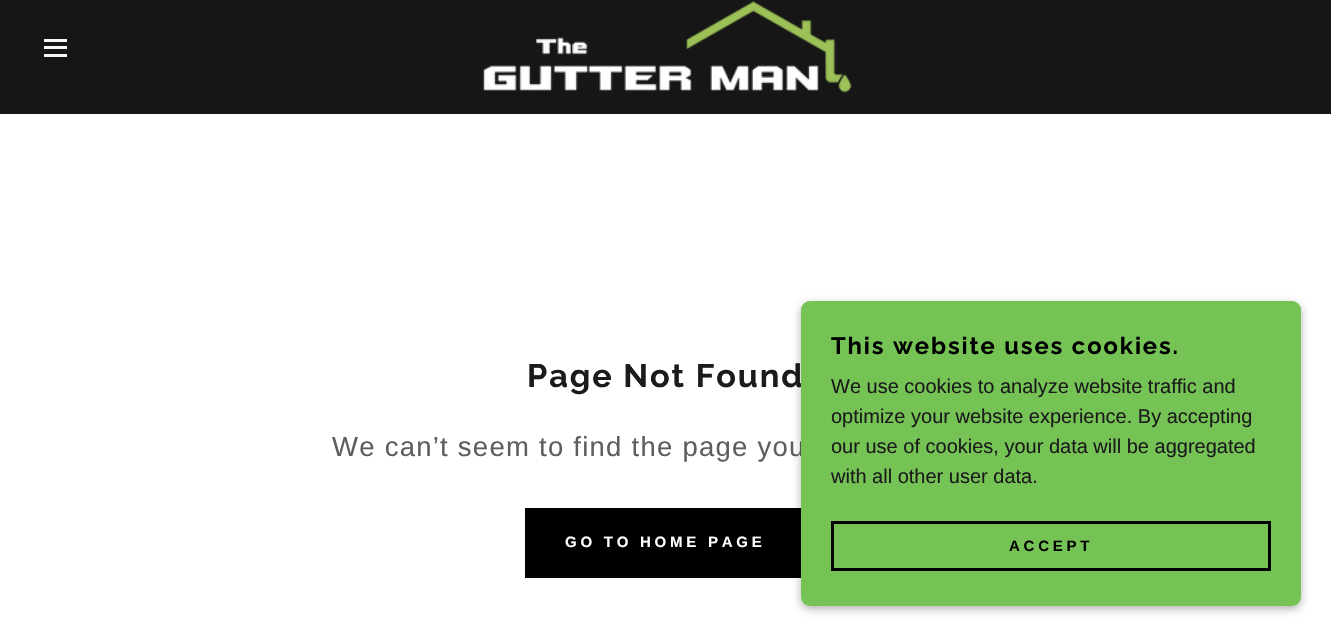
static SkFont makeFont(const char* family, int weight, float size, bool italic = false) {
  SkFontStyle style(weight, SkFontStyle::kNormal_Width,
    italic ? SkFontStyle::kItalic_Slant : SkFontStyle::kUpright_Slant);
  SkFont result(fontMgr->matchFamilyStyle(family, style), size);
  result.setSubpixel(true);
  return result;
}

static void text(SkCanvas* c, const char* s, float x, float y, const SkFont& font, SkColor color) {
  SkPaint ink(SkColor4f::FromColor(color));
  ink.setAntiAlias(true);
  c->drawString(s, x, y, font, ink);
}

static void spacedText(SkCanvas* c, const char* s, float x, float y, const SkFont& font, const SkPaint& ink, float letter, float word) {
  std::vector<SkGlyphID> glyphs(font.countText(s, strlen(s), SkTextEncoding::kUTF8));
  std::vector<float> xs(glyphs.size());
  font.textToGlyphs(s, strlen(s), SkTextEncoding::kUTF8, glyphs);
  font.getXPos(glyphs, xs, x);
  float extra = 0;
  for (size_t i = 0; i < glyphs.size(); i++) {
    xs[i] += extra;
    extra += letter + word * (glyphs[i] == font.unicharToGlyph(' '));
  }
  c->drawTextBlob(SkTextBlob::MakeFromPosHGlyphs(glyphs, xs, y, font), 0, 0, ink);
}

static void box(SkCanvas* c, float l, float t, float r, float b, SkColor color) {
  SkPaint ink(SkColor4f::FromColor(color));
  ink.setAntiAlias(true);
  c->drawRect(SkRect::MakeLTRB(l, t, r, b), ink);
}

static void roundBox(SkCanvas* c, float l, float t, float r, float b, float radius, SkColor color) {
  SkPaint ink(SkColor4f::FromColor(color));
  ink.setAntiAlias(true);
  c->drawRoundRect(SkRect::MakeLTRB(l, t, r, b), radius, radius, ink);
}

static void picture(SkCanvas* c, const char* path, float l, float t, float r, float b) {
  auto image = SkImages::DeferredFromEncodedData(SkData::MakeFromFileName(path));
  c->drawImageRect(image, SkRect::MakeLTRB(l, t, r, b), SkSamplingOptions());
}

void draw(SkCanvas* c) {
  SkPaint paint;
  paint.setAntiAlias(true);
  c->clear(0xffffffff);
  box(c, 0, 0, 1331, 114, 0xff161616);
  box(c, 44, 39, 67, 42, 0xfff7f7f7);
  box(c, 44, 46, 67, 49, 0xfff7f7f7);
  box(c, 44, 54, 67, 57, 0xfff7f7f7);
  picture(c, "img_01.png", 483, 1, 852, 93);
  SkFont face1 = makeFont("Raleway", 700, 32.5f);
  paint.setColor(0xff1b1b1b);
  spacedText(c, "Page Not Found", 527, 387, face1, paint, 1.9f, 0);
  SkFont face2 = makeFont("Liberation Sans", 400, 27.5f);
  paint.setColor(0xff5e5e5e);
  spacedText(c, "We can’t seem to find the page you", 332, 456, face2, paint, 1.25f, 0);
  box(c, 525, 508, 801, 578, 0xff000000);
  SkFont face3 = makeFont("Liberation Sans", 700, 15);
  paint.setColor(0xffffffff);
  spacedText(c, "GO TO HOME PAGE", 565, 547, face3, paint, 3.75f, 0);
  paint.setColor(0x4d000000);
  paint.setMaskFilter(SkMaskFilter::MakeBlur(kNormal_SkBlurStyle, 4));
  c->drawRoundRect(SkRect::MakeLTRB(801, 304, 1301, 609), 9, 9, paint);
  paint.setMaskFilter(nullptr);
  roundBox(c, 801, 301, 1301, 606, 9, 0xff75c255);
  SkFont face4 = makeFont("Raleway", 700, 23.75f);
  paint.setColor(0xff000000);
  spacedText(c, "This website uses cookies.", 831, 354, face4, paint, 1.9f, 0);
  SkFont face5 = makeFont("Liberation Sans", 400, 20);
  text(c, "We use cookies to analyze website traffic and", 831, 393, face5, 0xff1b1b1b);
  text(c, "optimize your website experience. By accepting", 831, 423, face5, 0xff1b1b1b);
  text(c, "our use of cookies, your data will be aggregated", 831, 453, face5, 0xff1b1b1b);
  text(c, "with all other user data.", 831, 483, face5, 0xff1b1b1b);
  paint.setStyle(SkPaint::kStroke_Style);
  paint.setStrokeWidth(3);
  c->drawRect(SkRect::MakeLTRB(832.5f, 522.5f, 1269.5f, 569.5f), paint);
  paint.setStyle(SkPaint::kFill_Style);
  spacedText(c, "ACCEPT", 1009, 551, face3, paint, 3.75f, 0);
}
